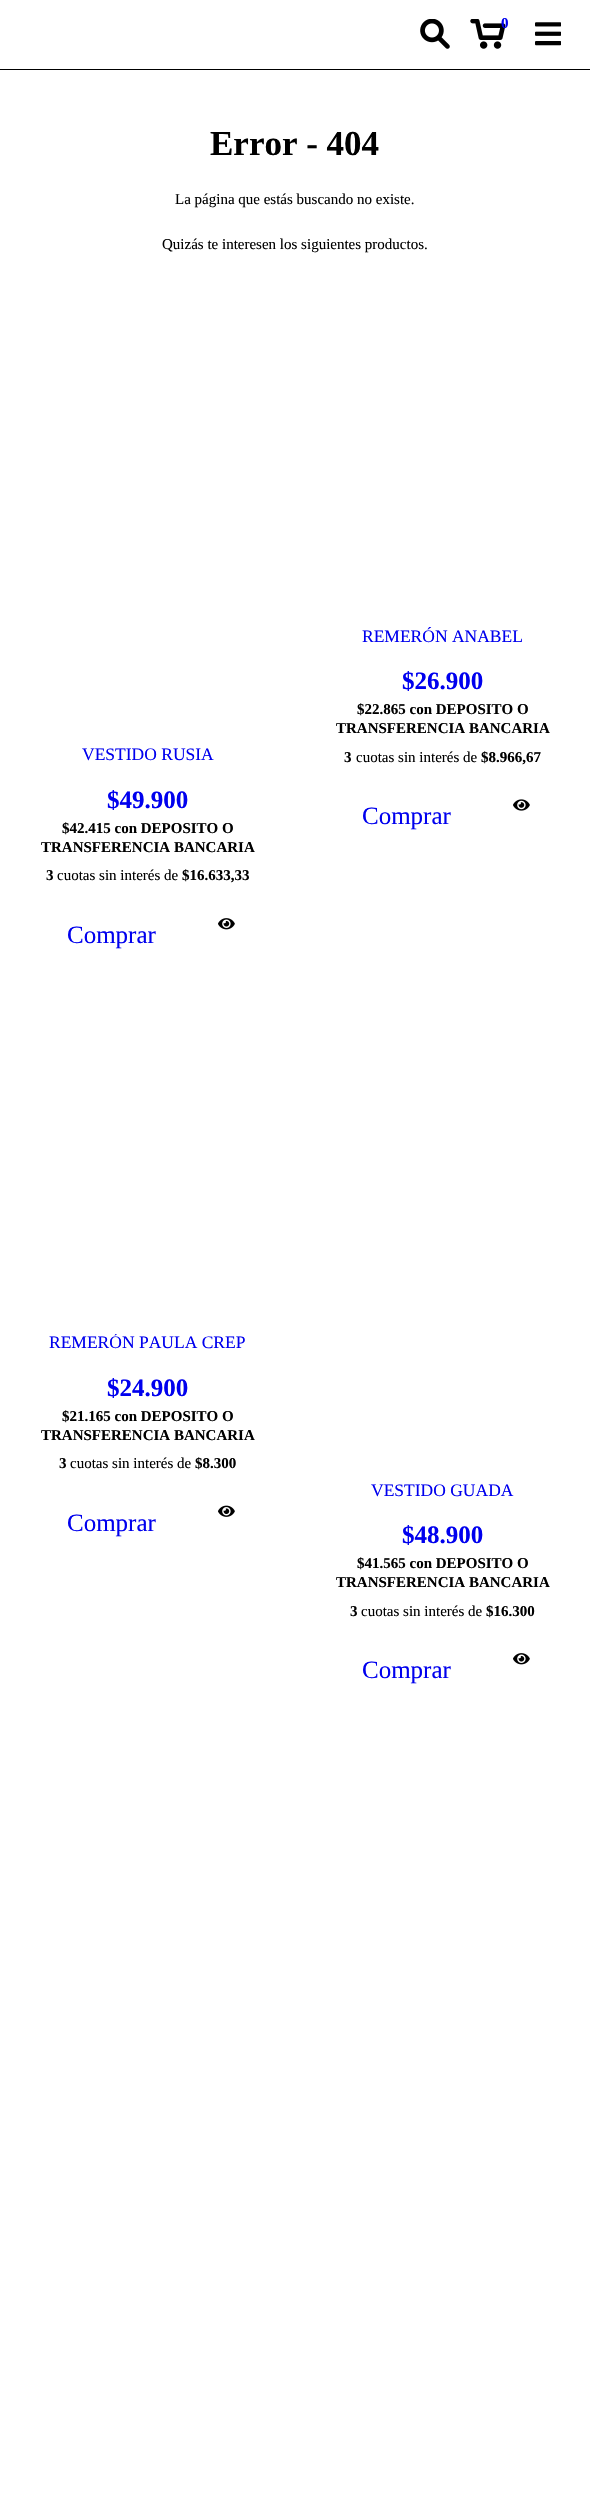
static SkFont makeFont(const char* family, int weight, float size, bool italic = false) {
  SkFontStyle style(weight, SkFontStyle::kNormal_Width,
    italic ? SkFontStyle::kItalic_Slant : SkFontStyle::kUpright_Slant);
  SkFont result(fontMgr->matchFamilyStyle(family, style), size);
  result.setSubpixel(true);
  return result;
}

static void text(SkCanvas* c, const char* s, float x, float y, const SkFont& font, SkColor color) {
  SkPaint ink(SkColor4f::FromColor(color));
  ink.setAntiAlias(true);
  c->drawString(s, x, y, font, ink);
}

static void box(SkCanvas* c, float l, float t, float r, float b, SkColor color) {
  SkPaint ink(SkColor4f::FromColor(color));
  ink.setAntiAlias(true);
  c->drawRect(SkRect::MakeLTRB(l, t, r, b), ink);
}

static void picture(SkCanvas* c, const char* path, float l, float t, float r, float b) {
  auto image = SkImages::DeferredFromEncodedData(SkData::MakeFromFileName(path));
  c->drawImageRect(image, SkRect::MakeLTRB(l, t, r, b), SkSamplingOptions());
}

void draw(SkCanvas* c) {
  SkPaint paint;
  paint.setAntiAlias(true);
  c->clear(0xffffffff);
  picture(c, "img_01.png", 420, 19, 450, 49);
  picture(c, "img_02.png", 470, 19, 506, 49);
  SkFont face1 = makeFont("Liberation Serif", 700, 15);
  text(c, "0", 501, 28, face1, 0xff0000ee);
  picture(c, "img_03.png", 535, 22, 561, 46);
  box(c, 0, 69, 590, 70, 0xff000000);
  SkFont face2 = makeFont("Liberation Serif", 700, 35);
  text(c, "Error - 404", 210, 155, face2, 0xff000000);
  SkFont face3 = makeFont("Liberation Serif", 400, 15);
  text(c, "La página que estás buscando no existe.", 175, 204, face3, 0xff000000);
  text(c, "Quizás te interesen los siguientes productos.", 162, 249, face3, 0xff000000);
  SkFont face4 = makeFont("Liberation Serif", 400, 17.5f);
  text(c, "VESTIDO RUSIA", 82, 760, face4, 0xff0000ee);
  SkFont face5 = makeFont("Liberation Serif", 700, 25);
  text(c, "$49.900", 107, 808, face5, 0xff0000ee);
  text(c, "$42.415 con DEPOSITO O", 62, 833, face1, 0xff000000);
  text(c, "TRANSFERENCIA BANCARIA", 41, 852, face1, 0xff000000);
  text(c, "3", 46, 880, face1, 0xff000000);
  text(c, "cuotas sin interés de", 57, 880, face3, 0xff000000);
  text(c, "$16.633,33", 182, 880, face1, 0xff000000);
  picture(c, "img_04.png", 218, 918, 235, 930);
  SkFont face6 = makeFont("Liberation Serif", 400, 25);
  text(c, "Comprar", 67, 943, face6, 0xff0000ee);
  text(c, "REMERÓN ANABEL", 362, 642, face4, 0xff0000ee);
  text(c, "$26.900", 402, 689, face5, 0xff0000ee);
  text(c, "$22.865 con DEPOSITO O", 357, 714, face1, 0xff000000);
  text(c, "TRANSFERENCIA BANCARIA", 336, 733, face1, 0xff000000);
  text(c, "3", 344, 762, face1, 0xff000000);
  text(c, "cuotas sin interés de", 356, 762, face3, 0xff000000);
  text(c, "$8.966,67", 481, 762, face1, 0xff000000);
  picture(c, "img_05.png", 513, 799, 530, 811);
  text(c, "Comprar", 362, 824, face6, 0xff0000ee);
  c->save();
  c->clipRect(SkRect::MakeLTRB(39, 1334, 256, 1354));
  text(c, "REMERÓN PAULA CREP", 49, 1348, face4, 0xff0000ee);
  c->restore();
  text(c, "$24.900", 107, 1396, face5, 0xff0000ee);
  text(c, "$21.165 con DEPOSITO O", 62, 1421, face1, 0xff000000);
  text(c, "TRANSFERENCIA BANCARIA", 41, 1440, face1, 0xff000000);
  text(c, "3", 59, 1468, face1, 0xff000000);
  text(c, "cuotas sin interés de", 70, 1468, face3, 0xff000000);
  text(c, "$8.300", 195, 1468, face1, 0xff000000);
  picture(c, "img_06.png", 218, 1505, 235, 1517);
  text(c, "Comprar", 67, 1531, face6, 0xff0000ee);
  text(c, "VESTIDO GUADA", 371, 1496, face4, 0xff0000ee);
  text(c, "$48.900", 402, 1543, face5, 0xff0000ee);
  text(c, "$41.565 con DEPOSITO O", 357, 1568, face1, 0xff000000);
  text(c, "TRANSFERENCIA BANCARIA", 336, 1587, face1, 0xff000000);
  text(c, "3", 350, 1616, face1, 0xff000000);
  text(c, "cuotas sin interés de", 361, 1616, face3, 0xff000000);
  text(c, "$16.300", 486, 1616, face1, 0xff000000);
  picture(c, "img_04.png", 513, 1653, 530, 1665);
  text(c, "Comprar", 362, 1678, face6, 0xff0000ee);
}
